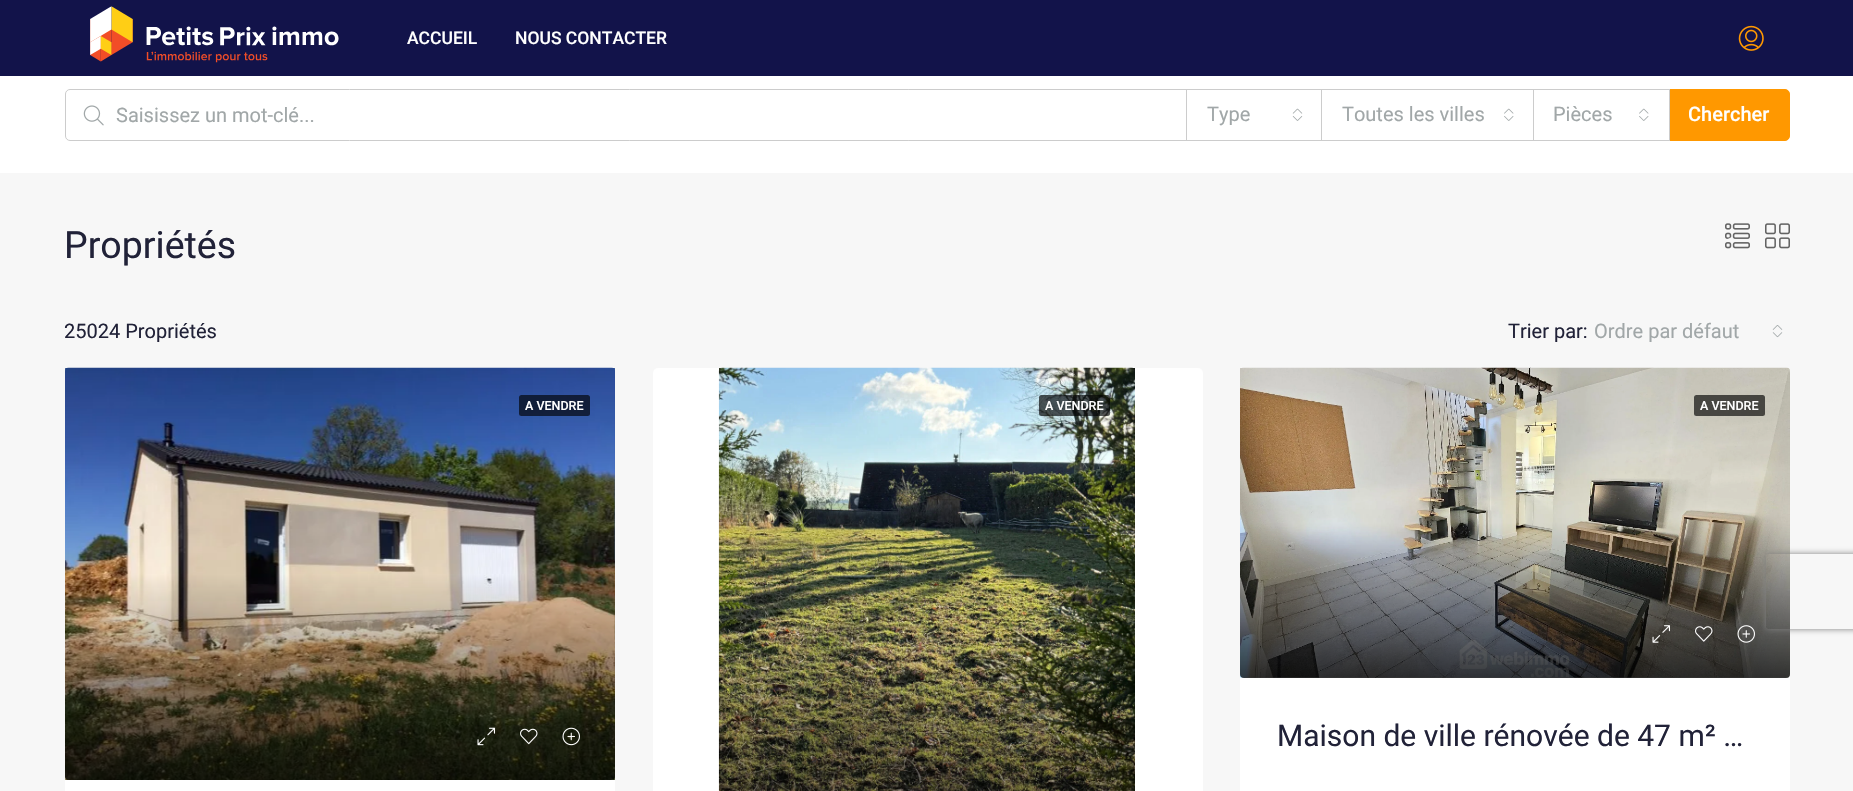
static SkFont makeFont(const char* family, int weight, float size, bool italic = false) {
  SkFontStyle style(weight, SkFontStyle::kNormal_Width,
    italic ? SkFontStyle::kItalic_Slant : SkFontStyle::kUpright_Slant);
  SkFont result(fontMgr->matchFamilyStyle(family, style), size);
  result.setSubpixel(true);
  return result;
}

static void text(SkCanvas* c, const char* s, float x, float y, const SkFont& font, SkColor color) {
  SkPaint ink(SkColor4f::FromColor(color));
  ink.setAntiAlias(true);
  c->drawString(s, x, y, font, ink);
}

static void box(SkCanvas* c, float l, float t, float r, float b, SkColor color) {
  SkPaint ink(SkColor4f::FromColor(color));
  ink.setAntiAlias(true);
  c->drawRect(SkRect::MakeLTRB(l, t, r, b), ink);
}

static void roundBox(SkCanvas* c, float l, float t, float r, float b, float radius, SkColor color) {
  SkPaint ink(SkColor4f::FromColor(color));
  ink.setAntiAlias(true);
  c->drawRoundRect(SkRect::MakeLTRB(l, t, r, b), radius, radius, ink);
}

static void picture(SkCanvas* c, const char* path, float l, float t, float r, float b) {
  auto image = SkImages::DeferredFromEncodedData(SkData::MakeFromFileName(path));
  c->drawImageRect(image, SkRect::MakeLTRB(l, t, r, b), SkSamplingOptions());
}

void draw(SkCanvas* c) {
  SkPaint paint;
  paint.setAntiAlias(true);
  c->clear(0xfff7f7f7);
  box(c, 0, 0, 1853, 76, 0xff12134a);
  picture(c, "img_01.png", 90, 6, 339, 63);
  SkFont face1 = makeFont("Roboto", 500, 17.5f);
  text(c, "ACCUEIL", 407, 44, face1, 0xffffffff);
  text(c, "NOUS CONTACTER", 515, 44, face1, 0xffffffff);
  picture(c, "img_02.png", 1738, 25, 1764, 51);
  box(c, 0, 76, 1853, 173, 0xffffffff);
  paint.setStyle(SkPaint::kStroke_Style);
  paint.setStrokeWidth(1);
  paint.setColor(0xffcccccc);
  c->drawPath(SkPathBuilder().moveTo(70, 89.5f).lineTo(1188.5f, 89.5f).lineTo(1188.5f, 140.5f).lineTo(70, 140.5f).cubicTo(67.5f, 140.5f, 65.5f, 138.5f, 65.5f, 136).lineTo(65.5f, 94).cubicTo(65.5f, 91.5f, 67.5f, 89.5f, 70, 89.5f).close().detach(), paint);
  picture(c, "img_03.png", 83, 105, 104, 126);
  SkFont face2 = makeFont("Roboto", 400, 20);
  text(c, "Saisissez un mot-clé...", 116, 122, face2, 0xffa1a7a8);
  box(c, 1188, 90, 1189, 140, 0xffffffff);
  c->drawRect(SkRect::MakeLTRB(1186.5f, 89.5f, 1323.5f, 140.5f), paint);
  text(c, "Type", 1207, 121, face2, 0xffa1a7a8);
  picture(c, "img_04.png", 1292, 108, 1303, 121);
  box(c, 1323, 90, 1324, 140, 0xffffffff);
  c->drawRect(SkRect::MakeLTRB(1321.5f, 89.5f, 1534.5f, 140.5f), paint);
  text(c, "Toutes les villes", 1342, 121, face2, 0xffa1a7a8);
  picture(c, "img_05.png", 1504, 108, 1514, 121);
  paint.setStyle(SkPaint::kFill_Style);
  paint.setColor(0xffff9800);
  c->drawPath(SkPathBuilder().moveTo(1668.5f, 89.5f).lineTo(1785, 89.5f).cubicTo(1787.5f, 89.5f, 1789.5f, 91.5f, 1789.5f, 94).lineTo(1789.5f, 136).cubicTo(1789.5f, 138.5f, 1787.5f, 140.5f, 1785, 140.5f).lineTo(1668.5f, 140.5f).close().detach(), paint);
  paint.setStyle(SkPaint::kStroke_Style);
  c->drawPath(SkPathBuilder().moveTo(1668.5f, 89.5f).lineTo(1785, 89.5f).cubicTo(1787.5f, 89.5f, 1789.5f, 91.5f, 1789.5f, 94).lineTo(1789.5f, 136).cubicTo(1789.5f, 138.5f, 1787.5f, 140.5f, 1785, 140.5f).lineTo(1668.5f, 140.5f).close().detach(), paint);
  paint.setStyle(SkPaint::kFill_Style);
  paint.setColor(0xffffffff);
  c->drawRect(SkRect::MakeLTRB(1533.5f, 89.5f, 1669.5f, 140.5f), paint);
  paint.setStyle(SkPaint::kStroke_Style);
  paint.setColor(0xffcccccc);
  c->drawRect(SkRect::MakeLTRB(1533.5f, 89.5f, 1669.5f, 140.5f), paint);
  text(c, "Pièces", 1553, 121, face2, 0xffa1a7a8);
  picture(c, "img_05.png", 1639, 108, 1649, 121);
  SkFont face3 = makeFont("Roboto", 500, 20);
  text(c, "Chercher", 1688, 121, face3, 0xffffffff);
  SkFont face4 = makeFont("Roboto", 400, 37.5f);
  text(c, "Propriétés", 64, 258, face4, 0xff212238);
  picture(c, "img_06.png", 1725, 223, 1750, 249);
  picture(c, "img_07.png", 1765, 223, 1790, 249);
  text(c, "25024 Propriétés", 64, 338, face2, 0xff212238);
  text(c, "Trier par:", 1508, 338, face2, 0xff212238);
  text(c, "Ordre par défaut", 1594, 338, face2, 0xffa1a7a8);
  picture(c, "img_08.png", 1772, 325, 1783, 338);
  roundBox(c, 65, 368, 615, 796, 5, 0xffffffff);
  picture(c, "img_09.png", 65, 367, 615, 779);
  picture(c, "img_10.png", 65, 368, 615, 780);
  picture(c, "img_11.png", 614, 368, 615, 780);
  roundBox(c, 519, 395, 590, 416, 2.5f, 0xa6000000);
  SkFont face5 = makeFont("Roboto", 500, 12.5f);
  text(c, "A VENDRE", 525, 410, face5, 0xffffffff);
  paint.setStyle(SkPaint::kFill_Style);
  {
    const SkColor colors[] = {0x00000000, 0x00000000, 0xbf000000};
    const float stops[] = {0, 0.5f, 1};
    const SkPoint ends[] = {{340, 368}, {340, 780}};
    paint.setShader(SkGradientShader::MakeLinear(ends, colors, stops, 3, SkTileMode::kClamp));
    paint.setAlpha(255);
  }
  c->drawRoundRect(SkRect::MakeLTRB(65, 368, 615, 780), 4, 4, paint);
  picture(c, "img_12.png", 477, 727, 495, 746);
  picture(c, "img_13.png", 520, 728, 538, 745);
  picture(c, "img_14.png", 562, 727, 580, 746);
  roundBox(c, 653, 368, 1203, 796, 5, 0xffffffff);
  picture(c, "img_15.png", 718, 367, 1133, 791);
  picture(c, "img_16.png", 719, 368, 1135, 791);
  {
    const SkColor colors[] = {0x00000000, 0x00000000, 0xbf000000};
    const float stops[] = {0, 0.5f, 1};
    const SkPoint ends[] = {{927, 368}, {927, 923}};
    paint.setShader(SkGradientShader::MakeLinear(ends, colors, stops, 3, SkTileMode::kClamp));
    paint.setAlpha(255);
  }
  c->drawRect(SkRect::MakeLTRB(719, 653, 1135, 791), paint);
  roundBox(c, 1039, 395, 1110, 416, 2.5f, 0xa6000000);
  text(c, "A VENDRE", 1045, 410, face5, 0xffffffff);
  roundBox(c, 1240, 368, 1790, 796, 5, 0xffffffff);
  picture(c, "img_17.png", 1240, 367, 1790, 678);
  picture(c, "img_18.png", 1240, 368, 1789, 678);
  roundBox(c, 1694, 395, 1765, 416, 2.5f, 0xa6000000);
  text(c, "A VENDRE", 1700, 410, face5, 0xffffffff);
  {
    const SkColor colors[] = {0x00000000, 0x00000000, 0xbf000000};
    const float stops[] = {0, 0.5f, 1};
    const SkPoint ends[] = {{1515, 368}, {1515, 678}};
    paint.setShader(SkGradientShader::MakeLinear(ends, colors, stops, 3, SkTileMode::kClamp));
    paint.setAlpha(255);
  }
  c->drawRoundRect(SkRect::MakeLTRB(1240, 368, 1790, 678), 4, 4, paint);
  picture(c, "img_19.png", 1652, 625, 1670, 643);
  picture(c, "img_20.png", 1695, 626, 1713, 642);
  picture(c, "img_21.png", 1737, 625, 1755, 643);
  SkFont face6 = makeFont("Roboto", 400, 30);
  text(c, "Maison de ville rénovée de 47 m² …", 1277, 746, face6, 0xff212238);
  c->save();
  c->clipPath(SkPathBuilder(SkPathFillType::kEvenOdd).moveTo(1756, 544).lineTo(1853, 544).lineTo(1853, 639).lineTo(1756, 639).close().moveTo(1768.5f, 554).lineTo(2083.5f, 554).cubicTo(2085, 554, 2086, 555, 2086, 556.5f).lineTo(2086, 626.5f).cubicTo(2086, 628, 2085, 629, 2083.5f, 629).lineTo(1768.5f, 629).cubicTo(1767, 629, 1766, 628, 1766, 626.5f).lineTo(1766, 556.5f).cubicTo(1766, 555, 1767, 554, 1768.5f, 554).close().detach(), true);
  paint.setShader(nullptr);
  paint.setColor(0xff808080);
  paint.setMaskFilter(SkMaskFilter::MakeBlur(kNormal_SkBlurStyle, 3));
  c->drawRoundRect(SkRect::MakeLTRB(1766, 554, 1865, 629), 2.5f, 2.5f, paint);
  paint.setMaskFilter(nullptr);
  c->restore();
}
